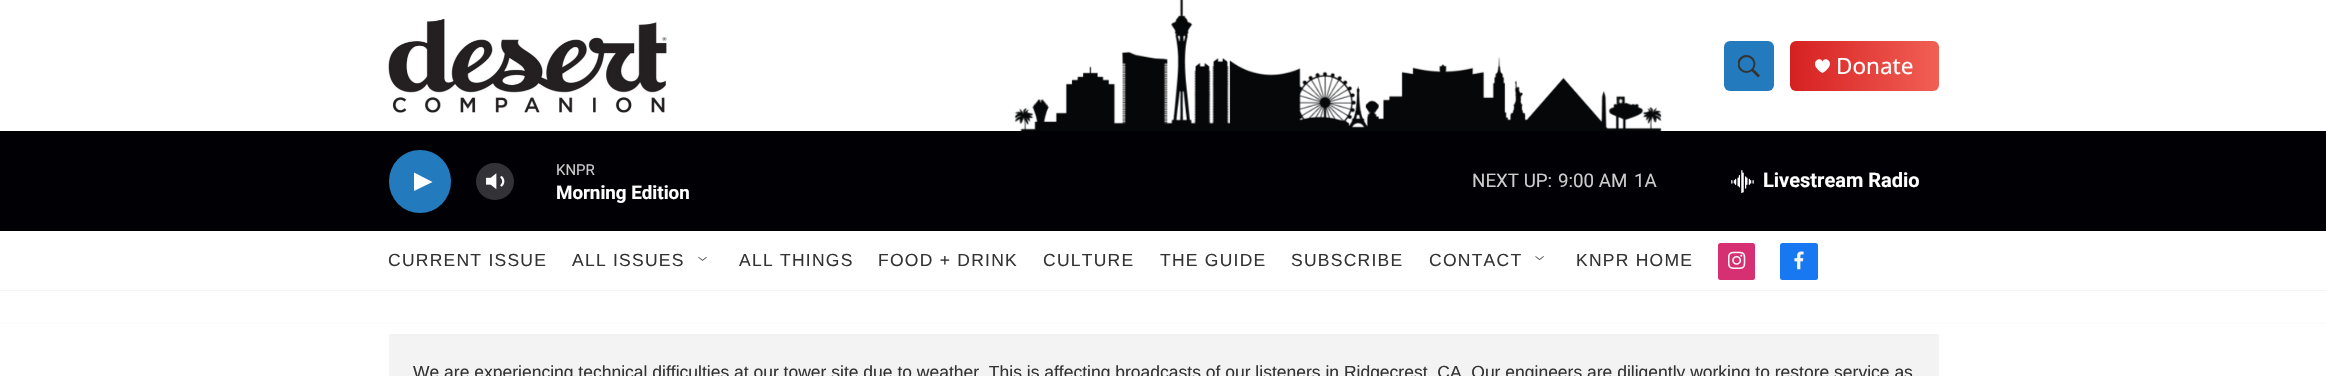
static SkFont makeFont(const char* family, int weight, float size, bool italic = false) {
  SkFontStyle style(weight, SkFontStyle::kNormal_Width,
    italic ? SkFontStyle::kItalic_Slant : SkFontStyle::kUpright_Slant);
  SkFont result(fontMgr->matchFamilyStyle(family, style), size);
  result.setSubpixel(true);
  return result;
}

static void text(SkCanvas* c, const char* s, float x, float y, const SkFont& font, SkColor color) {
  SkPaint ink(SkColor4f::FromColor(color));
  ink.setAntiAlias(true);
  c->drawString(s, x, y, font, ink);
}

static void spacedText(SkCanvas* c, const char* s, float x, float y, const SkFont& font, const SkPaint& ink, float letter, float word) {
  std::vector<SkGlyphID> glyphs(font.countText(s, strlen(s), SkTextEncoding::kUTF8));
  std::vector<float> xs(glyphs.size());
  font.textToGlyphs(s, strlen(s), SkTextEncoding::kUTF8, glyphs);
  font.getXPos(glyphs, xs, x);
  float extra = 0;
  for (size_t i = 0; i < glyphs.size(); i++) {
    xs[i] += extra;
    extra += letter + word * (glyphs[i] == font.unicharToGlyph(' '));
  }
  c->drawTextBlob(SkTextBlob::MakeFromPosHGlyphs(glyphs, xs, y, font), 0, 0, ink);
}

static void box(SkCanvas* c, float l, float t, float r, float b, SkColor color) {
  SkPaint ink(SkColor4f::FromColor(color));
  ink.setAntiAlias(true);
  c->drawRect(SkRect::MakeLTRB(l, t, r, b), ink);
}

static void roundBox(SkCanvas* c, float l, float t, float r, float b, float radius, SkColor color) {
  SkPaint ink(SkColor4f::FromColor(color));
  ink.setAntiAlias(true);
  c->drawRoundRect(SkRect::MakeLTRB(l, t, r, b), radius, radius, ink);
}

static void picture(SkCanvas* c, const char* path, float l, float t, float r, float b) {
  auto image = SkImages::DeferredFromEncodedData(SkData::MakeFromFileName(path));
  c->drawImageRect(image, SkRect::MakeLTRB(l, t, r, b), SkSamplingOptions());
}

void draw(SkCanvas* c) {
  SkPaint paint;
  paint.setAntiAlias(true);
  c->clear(0xffffffff);
  box(c, 0, 290, 2326, 291, 0xfff5f5f5);
  picture(c, "img_01.png", 1014, 0, 1662, 131);
  picture(c, "img_02.png", 388, 19, 667, 113);
  roundBox(c, 1724, 41, 1774, 91, 6, 0xff237bbd);
  picture(c, "img_03.png", 1738, 55, 1760, 78);
  {
    const SkColor colors[] = {0xffd62021, 0xfff16054, 0xffd62021};
    const float stops[] = {0, 0.5f, 1};
    const SkPoint ends[] = {{1790, 66}, {2088, 66}};
    paint.setShader(SkGradientShader::MakeLinear(ends, colors, stops, 3, SkTileMode::kClamp));
    paint.setAlpha(255);
  }
  c->drawRoundRect(SkRect::MakeLTRB(1790, 41, 1939, 91), 6, 6, paint);
  paint.setShader(nullptr);
  paint.setColor(0xffffffff);
  c->drawPath(SkPathBuilder().moveTo(1822.5f, 61.5f).cubicTo(1820, 55, 1807, 63.5f, 1822.5f, 73).cubicTo(1838, 63.5f, 1825, 55, 1822.5f, 61.5f).close().detach(), paint);
  SkFont face1 = makeFont("Noto Sans", 400, 22.5f);
  text(c, "Donate", 1836, 74, face1, 0xffffffff);
  box(c, 0, 131, 2326, 231, 0xff000005);
  roundBox(c, 389, 150, 451, 213, 31, 0xff237bbd);
  c->drawPath(SkPathBuilder().moveTo(414, 172.5f).lineTo(432.5f, 182).lineTo(414, 191).close().detach(), paint);
  picture(c, "img_04.png", 486, 173, 505, 190);
  roundBox(c, 476, 163, 514, 200, 18.5f, 0x33ffffff);
  SkFont face2 = makeFont("Roboto", 400, 15);
  text(c, "KNPR", 556, 175, face2, 0xffcccccd);
  SkFont face3 = makeFont("Roboto", 700, 18.75f);
  text(c, "Morning Edition", 556, 199, face3, 0xffffffff);
  SkFont face4 = makeFont("Roboto", 400, 18.75f);
  text(c, "NEXT UP:", 1472, 187, face4, 0xffcccccd);
  text(c, "9:00 AM", 1558, 187, face4, 0xffcccccd);
  text(c, "1A", 1634, 187, face4, 0xffcccccd);
  picture(c, "img_05.png", 1731, 170, 1754, 193);
  SkFont face5 = makeFont("Roboto", 700, 20);
  text(c, "Livestream Radio", 1763, 187, face5, 0xffffffff);
  SkFont face6 = makeFont("Liberation Sans", 400, 17.5f);
  paint.setColor(0xff333333);
  spacedText(c, "CURRENT ISSUE", 388, 266, face6, paint, 1.25f, 0);
  spacedText(c, "ALL ISSUES", 572, 266, face6, paint, 1.25f, 0);
  picture(c, "img_06.png", 698, 256, 707, 261);
  spacedText(c, "ALL THINGS", 739, 266, face6, paint, 1.25f, 0);
  spacedText(c, "FOOD + DRINK", 878, 266, face6, paint, 1.25f, 0);
  spacedText(c, "CULTURE", 1043, 266, face6, paint, 1.25f, 0);
  spacedText(c, "THE GUIDE", 1160, 266, face6, paint, 1.25f, 0);
  spacedText(c, "SUBSCRIBE", 1291, 266, face6, paint, 1.25f, 0);
  spacedText(c, "CONTACT", 1429, 266, face6, paint, 1.25f, 0);
  picture(c, "img_07.png", 1535, 256, 1544, 260);
  spacedText(c, "KNPR HOME", 1576, 266, face6, paint, 1.25f, 0);
  roundBox(c, 1718, 243, 1755, 280, 2.5f, 0xffd63072);
  picture(c, "img_08.png", 1728, 251, 1746, 269);
  roundBox(c, 1780, 243, 1818, 280, 2.5f, 0xff1778f2);
  picture(c, "img_09.png", 1794, 251, 1804, 270);
  box(c, 0, 323, 2326, 324, 0xfffafafa);
  box(c, 389, 334, 1939, 376, 0xfff3f3f3);
  text(c, "We are experiencing technical difficulties at our tower site due to weather. This is affecting broadcasts of our listeners in Ridgecrest, CA. Our engineers are diligently working to restore service as", 413, 378, face6, 0xff333333);
}
